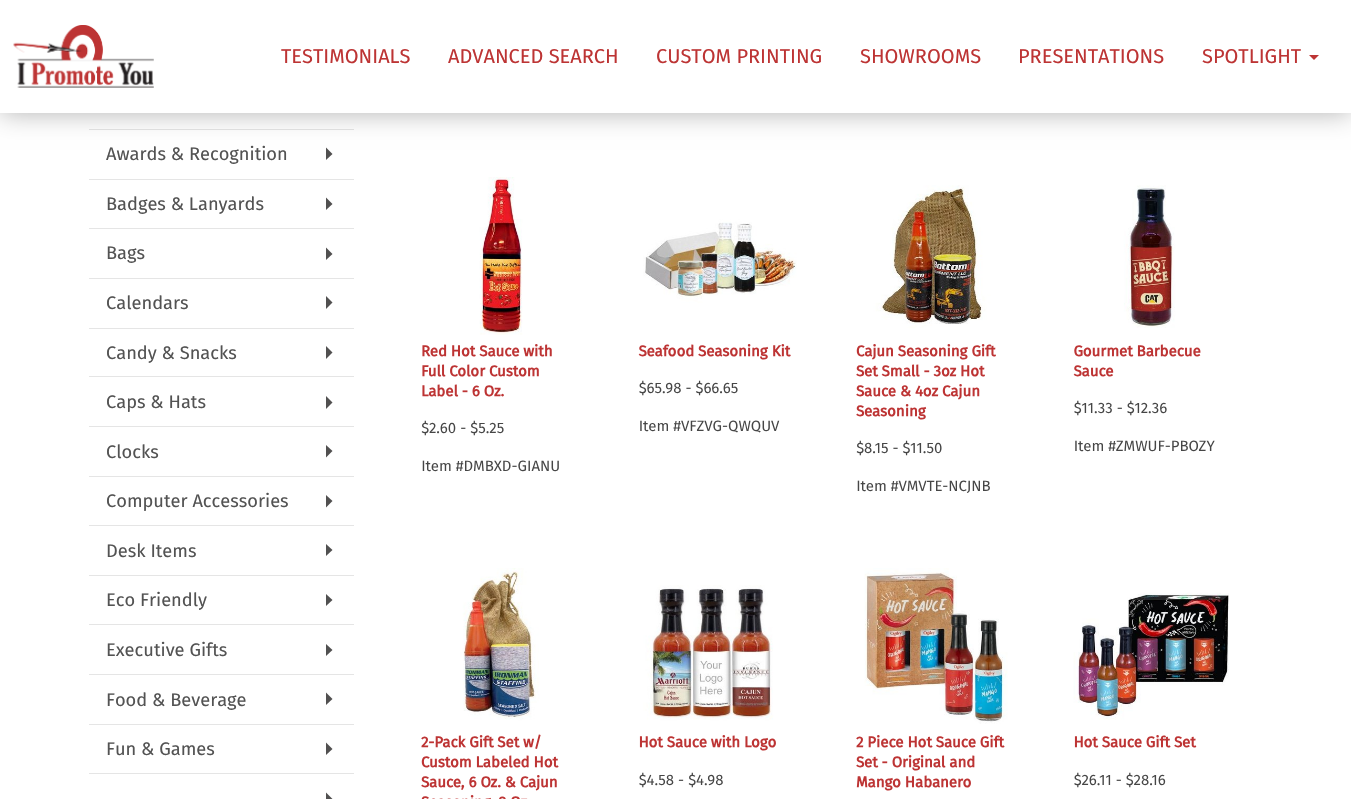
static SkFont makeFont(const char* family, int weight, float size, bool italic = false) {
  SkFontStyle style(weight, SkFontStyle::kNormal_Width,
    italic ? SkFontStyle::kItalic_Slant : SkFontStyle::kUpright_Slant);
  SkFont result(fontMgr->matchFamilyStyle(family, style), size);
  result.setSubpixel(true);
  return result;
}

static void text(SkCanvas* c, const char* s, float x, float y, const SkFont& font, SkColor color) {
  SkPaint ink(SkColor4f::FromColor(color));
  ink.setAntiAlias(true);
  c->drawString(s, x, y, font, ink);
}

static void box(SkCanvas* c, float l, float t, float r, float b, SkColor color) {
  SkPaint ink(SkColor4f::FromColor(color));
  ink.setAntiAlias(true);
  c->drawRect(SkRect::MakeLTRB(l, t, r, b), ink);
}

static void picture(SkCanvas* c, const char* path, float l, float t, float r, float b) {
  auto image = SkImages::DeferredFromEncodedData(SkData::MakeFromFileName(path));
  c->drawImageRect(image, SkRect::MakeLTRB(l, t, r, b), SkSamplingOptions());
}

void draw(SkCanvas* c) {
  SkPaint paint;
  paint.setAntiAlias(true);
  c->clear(0xffffffff);
  box(c, 89, 129, 354, 130, 0xffe5e5e5);
  paint.setColor(0xff515050);
  c->drawPath(SkPathBuilder().moveTo(326, 160).lineTo(326, 147.5f).lineTo(332.5f, 154).close().detach(), paint);
  picture(c, "img_02.png", 421, 113, 1229, 799);
  paint.setColor(0x4d000000);
  paint.setMaskFilter(SkMaskFilter::MakeBlur(kNormal_SkBlurStyle, 12.5f));
  c->drawRect(SkRect::MakeLTRB(0, 0, 1351, 113), paint);
  paint.setMaskFilter(nullptr);
  box(c, 0, 0, 1351, 113, 0xffffffff);
  picture(c, "img_01.png", 13, 25, 154, 88);
  SkFont face1 = makeFont("Fira Sans", 400, 20);
  text(c, "TESTIMONIALS", 281, 63, face1, 0xffbd3434);
  text(c, "ADVANCED SEARCH", 448, 63, face1, 0xffbd3434);
  text(c, "CUSTOM PRINTING", 656, 63, face1, 0xffbd3434);
  text(c, "SHOWROOMS", 860, 63, face1, 0xffbd3434);
  text(c, "PRESENTATIONS", 1018, 63, face1, 0xffbd3434);
  text(c, "SPOTLIGHT", 1202, 63, face1, 0xffbd3434);
  paint.setColor(0xffbd3434);
  c->drawPath(SkPathBuilder().moveTo(1309, 55).lineTo(1319, 55).lineTo(1314, 60).close().detach(), paint);
  SkFont face2 = makeFont("Fira Sans", 400, 18.25f);
  text(c, "Awards & Recognition", 106, 160, face2, 0xff535353);
  box(c, 89, 179, 354, 180, 0xffe5e5e5);
  text(c, "Badges & Lanyards", 106, 210, face2, 0xff535353);
  paint.setColor(0xff515050);
  c->drawPath(SkPathBuilder().moveTo(326, 210).lineTo(326, 197.5f).lineTo(332.5f, 204).close().detach(), paint);
  box(c, 89, 228, 354, 229, 0xffe5e5e5);
  text(c, "Bags", 106, 259, face2, 0xff535353);
  c->drawPath(SkPathBuilder().moveTo(326, 260).lineTo(326, 247.5f).lineTo(332.5f, 254).close().detach(), paint);
  box(c, 89, 278, 354, 279, 0xffe5e5e5);
  text(c, "Calendars", 106, 309, face2, 0xff535353);
  c->drawPath(SkPathBuilder().moveTo(326, 309).lineTo(326, 296).lineTo(332.5f, 302.5f).close().detach(), paint);
  box(c, 89, 328, 354, 329, 0xffe5e5e5);
  text(c, "Candy & Snacks", 106, 359, face2, 0xff535353);
  c->drawPath(SkPathBuilder().moveTo(326, 359).lineTo(326, 346).lineTo(332.5f, 352.5f).close().detach(), paint);
  box(c, 89, 376, 354, 377, 0xffe5e5e5);
  text(c, "Caps & Hats", 106, 408, face2, 0xff535353);
  c->drawPath(SkPathBuilder().moveTo(326, 409).lineTo(326, 396).lineTo(332.5f, 402.5f).close().detach(), paint);
  box(c, 89, 426, 354, 427, 0xffe5e5e5);
  text(c, "Clocks", 106, 458, face2, 0xff535353);
  c->drawPath(SkPathBuilder().moveTo(326, 457.5f).lineTo(326, 445).lineTo(332.5f, 451).close().detach(), paint);
  box(c, 89, 476, 354, 477, 0xffe5e5e5);
  text(c, "Computer Accessories", 106, 507, face2, 0xff535353);
  c->drawPath(SkPathBuilder().moveTo(326, 507.5f).lineTo(326, 495).lineTo(332.5f, 501).close().detach(), paint);
  box(c, 89, 525, 354, 526, 0xffe5e5e5);
  text(c, "Desk Items", 106, 557, face2, 0xff535353);
  c->drawPath(SkPathBuilder().moveTo(326, 556).lineTo(326, 544).lineTo(332.5f, 550).close().detach(), paint);
  box(c, 89, 575, 354, 576, 0xffe5e5e5);
  text(c, "Eco Friendly", 106, 606, face2, 0xff535353);
  c->drawPath(SkPathBuilder().moveTo(326, 606).lineTo(326, 594).lineTo(332.5f, 600).close().detach(), paint);
  box(c, 89, 624, 354, 625, 0xffe5e5e5);
  text(c, "Executive Gifts", 106, 656, face2, 0xff535353);
  c->drawPath(SkPathBuilder().moveTo(326, 656).lineTo(326, 644).lineTo(332.5f, 650).close().detach(), paint);
  box(c, 89, 674, 354, 675, 0xffe5e5e5);
  text(c, "Food & Beverage", 106, 706, face2, 0xff535353);
  c->drawPath(SkPathBuilder().moveTo(326, 705).lineTo(326, 692.5f).lineTo(332.5f, 699).close().detach(), paint);
  box(c, 89, 724, 354, 725, 0xffe5e5e5);
  text(c, "Fun & Games", 106, 755, face2, 0xff535353);
  c->drawPath(SkPathBuilder().moveTo(326, 755).lineTo(326, 742.5f).lineTo(332.5f, 749).close().detach(), paint);
  box(c, 89, 773, 354, 774, 0xffe5e5e5);
  c->drawPath(SkPathBuilder().moveTo(326, 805).lineTo(326, 792.5f).lineTo(332.5f, 799).close().detach(), paint);
}
